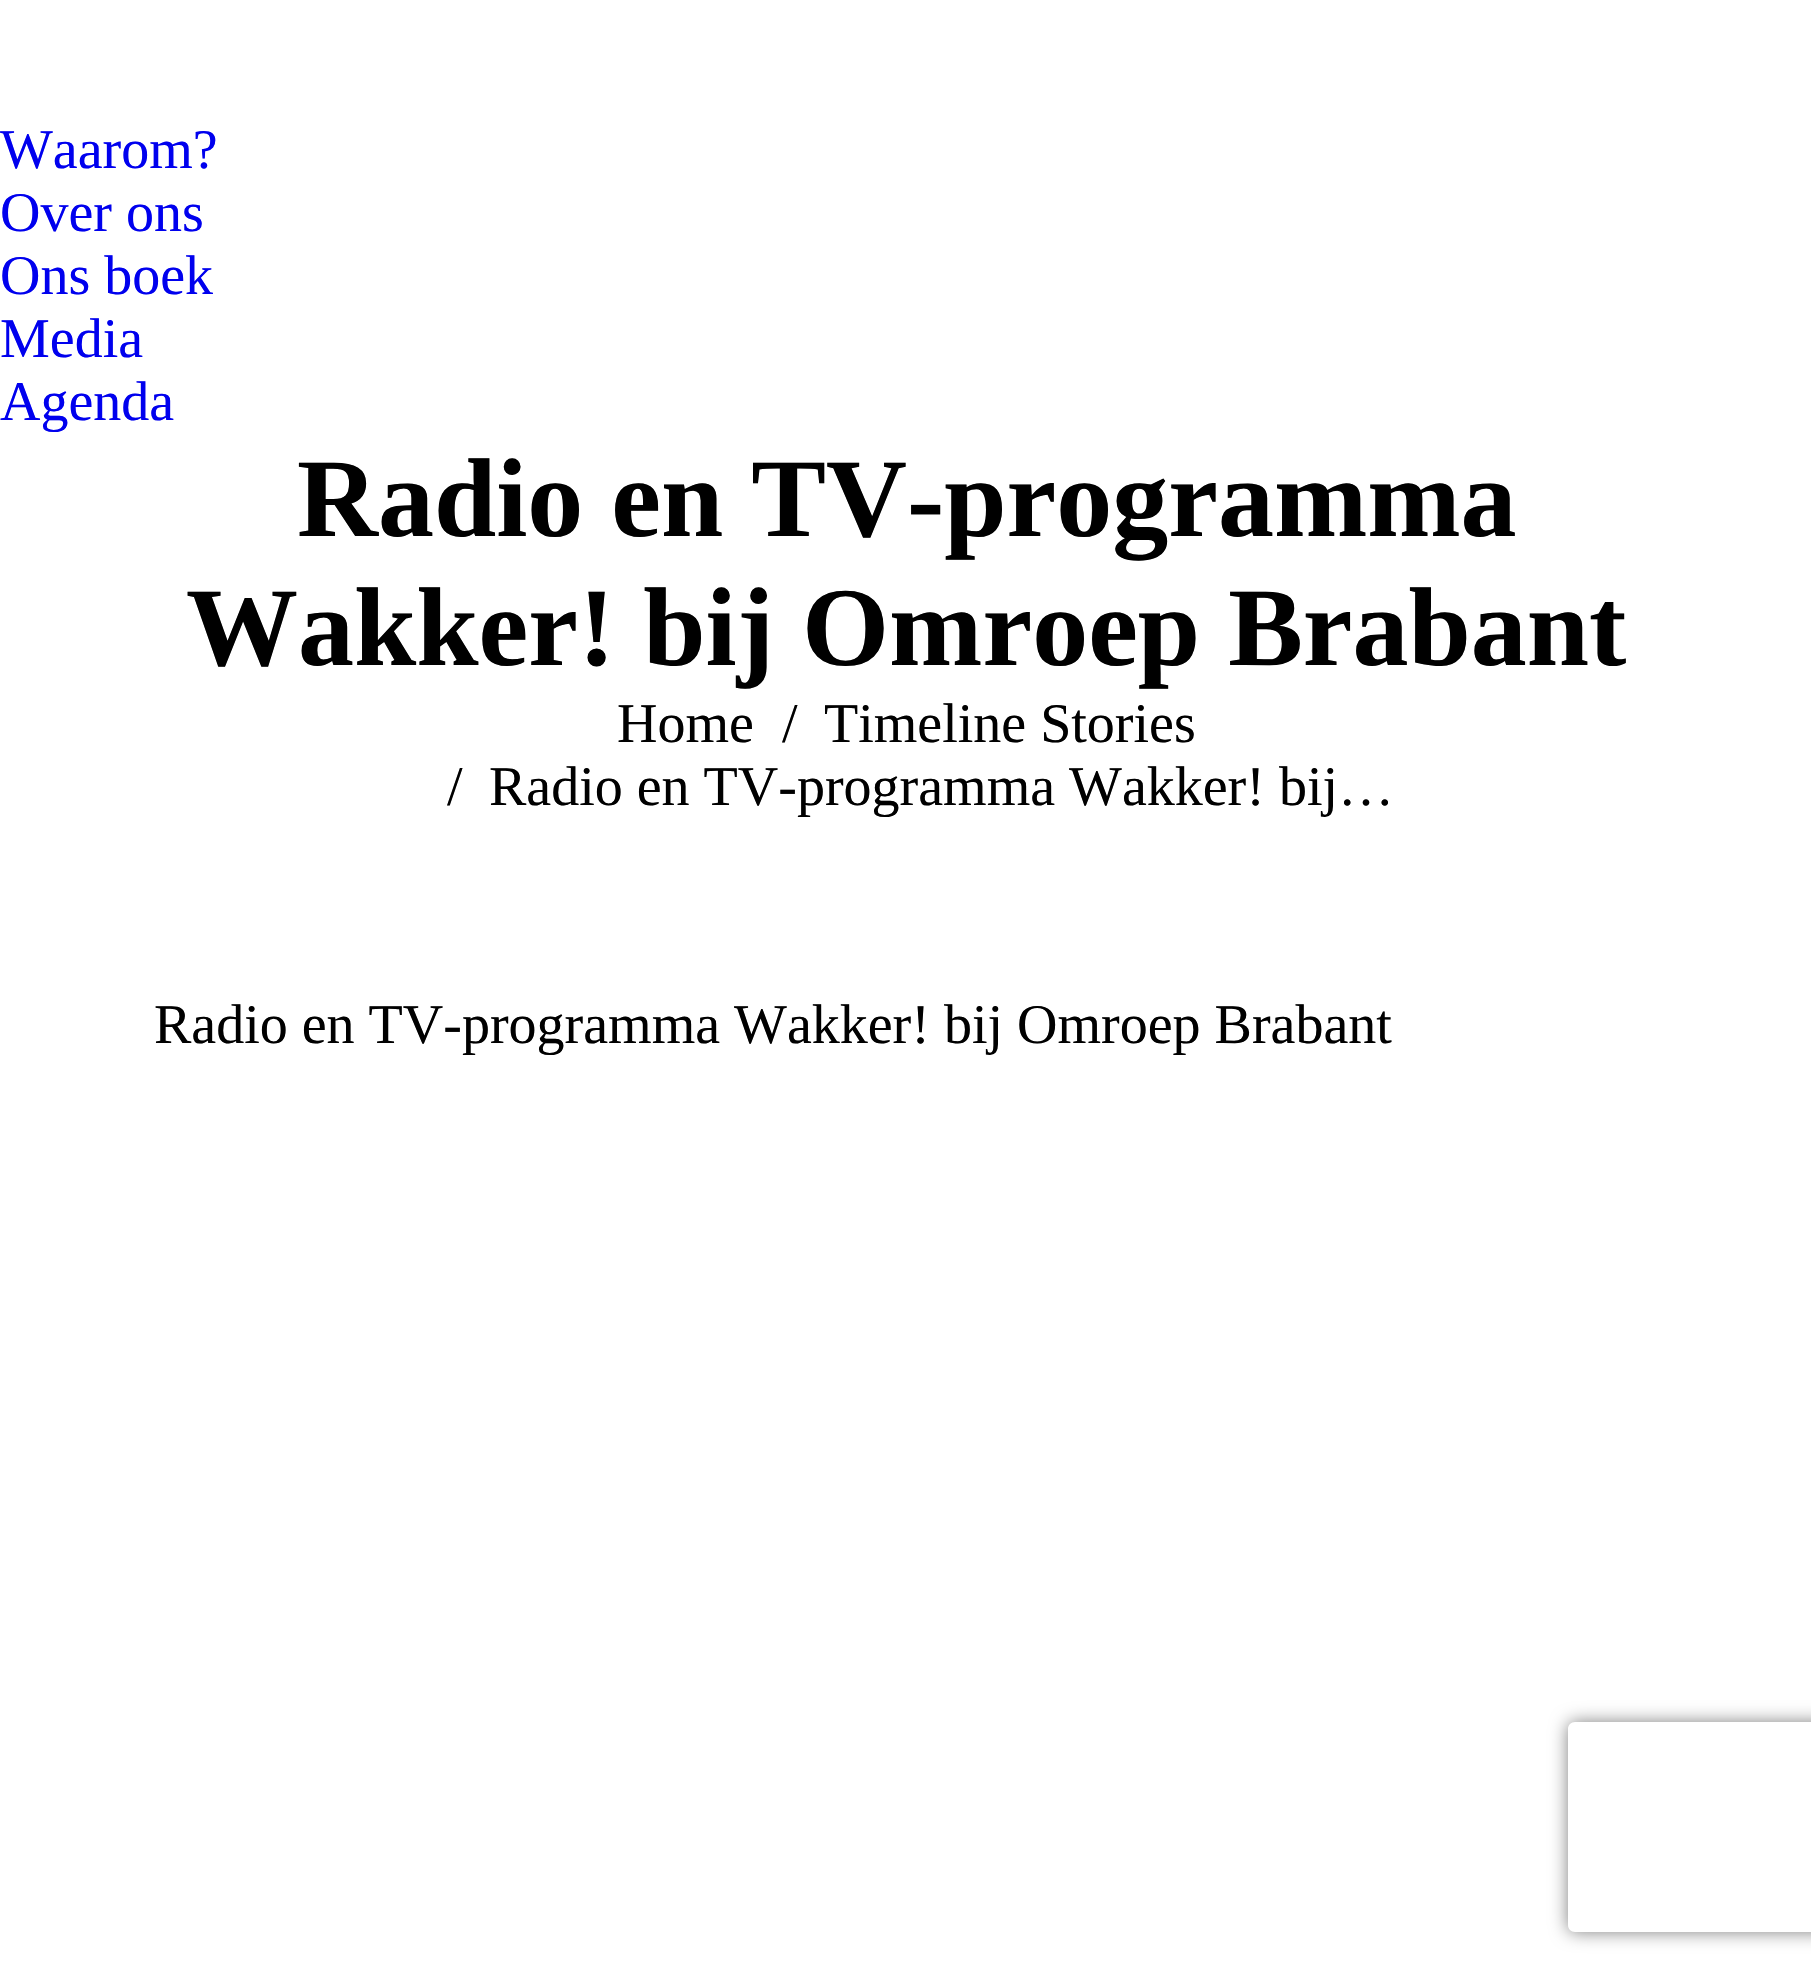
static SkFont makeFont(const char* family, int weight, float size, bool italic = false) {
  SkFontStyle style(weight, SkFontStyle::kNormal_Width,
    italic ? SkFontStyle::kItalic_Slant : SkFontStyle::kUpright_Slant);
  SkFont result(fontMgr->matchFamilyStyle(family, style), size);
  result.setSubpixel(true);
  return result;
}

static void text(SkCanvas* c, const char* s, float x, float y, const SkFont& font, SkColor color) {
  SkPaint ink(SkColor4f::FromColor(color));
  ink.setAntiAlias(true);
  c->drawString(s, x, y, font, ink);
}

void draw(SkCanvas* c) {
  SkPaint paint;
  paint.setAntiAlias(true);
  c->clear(0xffffffff);
  SkFont face1 = makeFont("Liberation Serif", 400, 56);
  text(c, "Waarom?", 0, 168, face1, 0xff0000ee);
  text(c, "Over ons", 0, 231, face1, 0xff0000ee);
  text(c, "Ons boek", 0, 294, face1, 0xff0000ee);
  text(c, "Media", 0, 357, face1, 0xff0000ee);
  text(c, "Agenda", 0, 420, face1, 0xff0000ee);
  SkFont face2 = makeFont("Liberation Serif", 700, 112);
  text(c, "Radio en TV-programma", 297, 536, face2, 0xff000000);
  text(c, "Wakker! bij Omroep Brabant", 186, 665, face2, 0xff000000);
  text(c, "Home", 617, 742, face1, 0xff000000);
  text(c, "/", 782, 742, face1, 0xff000000);
  text(c, "Timeline Stories", 824, 742, face1, 0xff000000);
  text(c, "/", 447, 805, face1, 0xff000000);
  text(c, "Radio en TV-programma Wakker! bij…", 489, 805, face1, 0xff000000);
  text(c, "Radio en TV-programma Wakker! bij Omroep Brabant", 154, 1043, face1, 0xff000000);
  c->save();
  c->clipPath(SkPathBuilder(SkPathFillType::kEvenOdd).moveTo(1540, 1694).lineTo(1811, 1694).lineTo(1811, 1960).lineTo(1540, 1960).close().moveTo(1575, 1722).lineTo(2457, 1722).cubicTo(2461, 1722, 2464, 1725, 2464, 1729).lineTo(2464, 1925).cubicTo(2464, 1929, 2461, 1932, 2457, 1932).lineTo(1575, 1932).cubicTo(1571, 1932, 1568, 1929, 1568, 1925).lineTo(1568, 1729).cubicTo(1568, 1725, 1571, 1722, 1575, 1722).close().detach(), true);
  paint.setColor(0xff808080);
  paint.setMaskFilter(SkMaskFilter::MakeBlur(kNormal_SkBlurStyle, 9));
  c->drawRoundRect(SkRect::MakeLTRB(1568, 1722, 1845, 1932), 7, 7, paint);
  paint.setMaskFilter(nullptr);
  c->restore();
}
